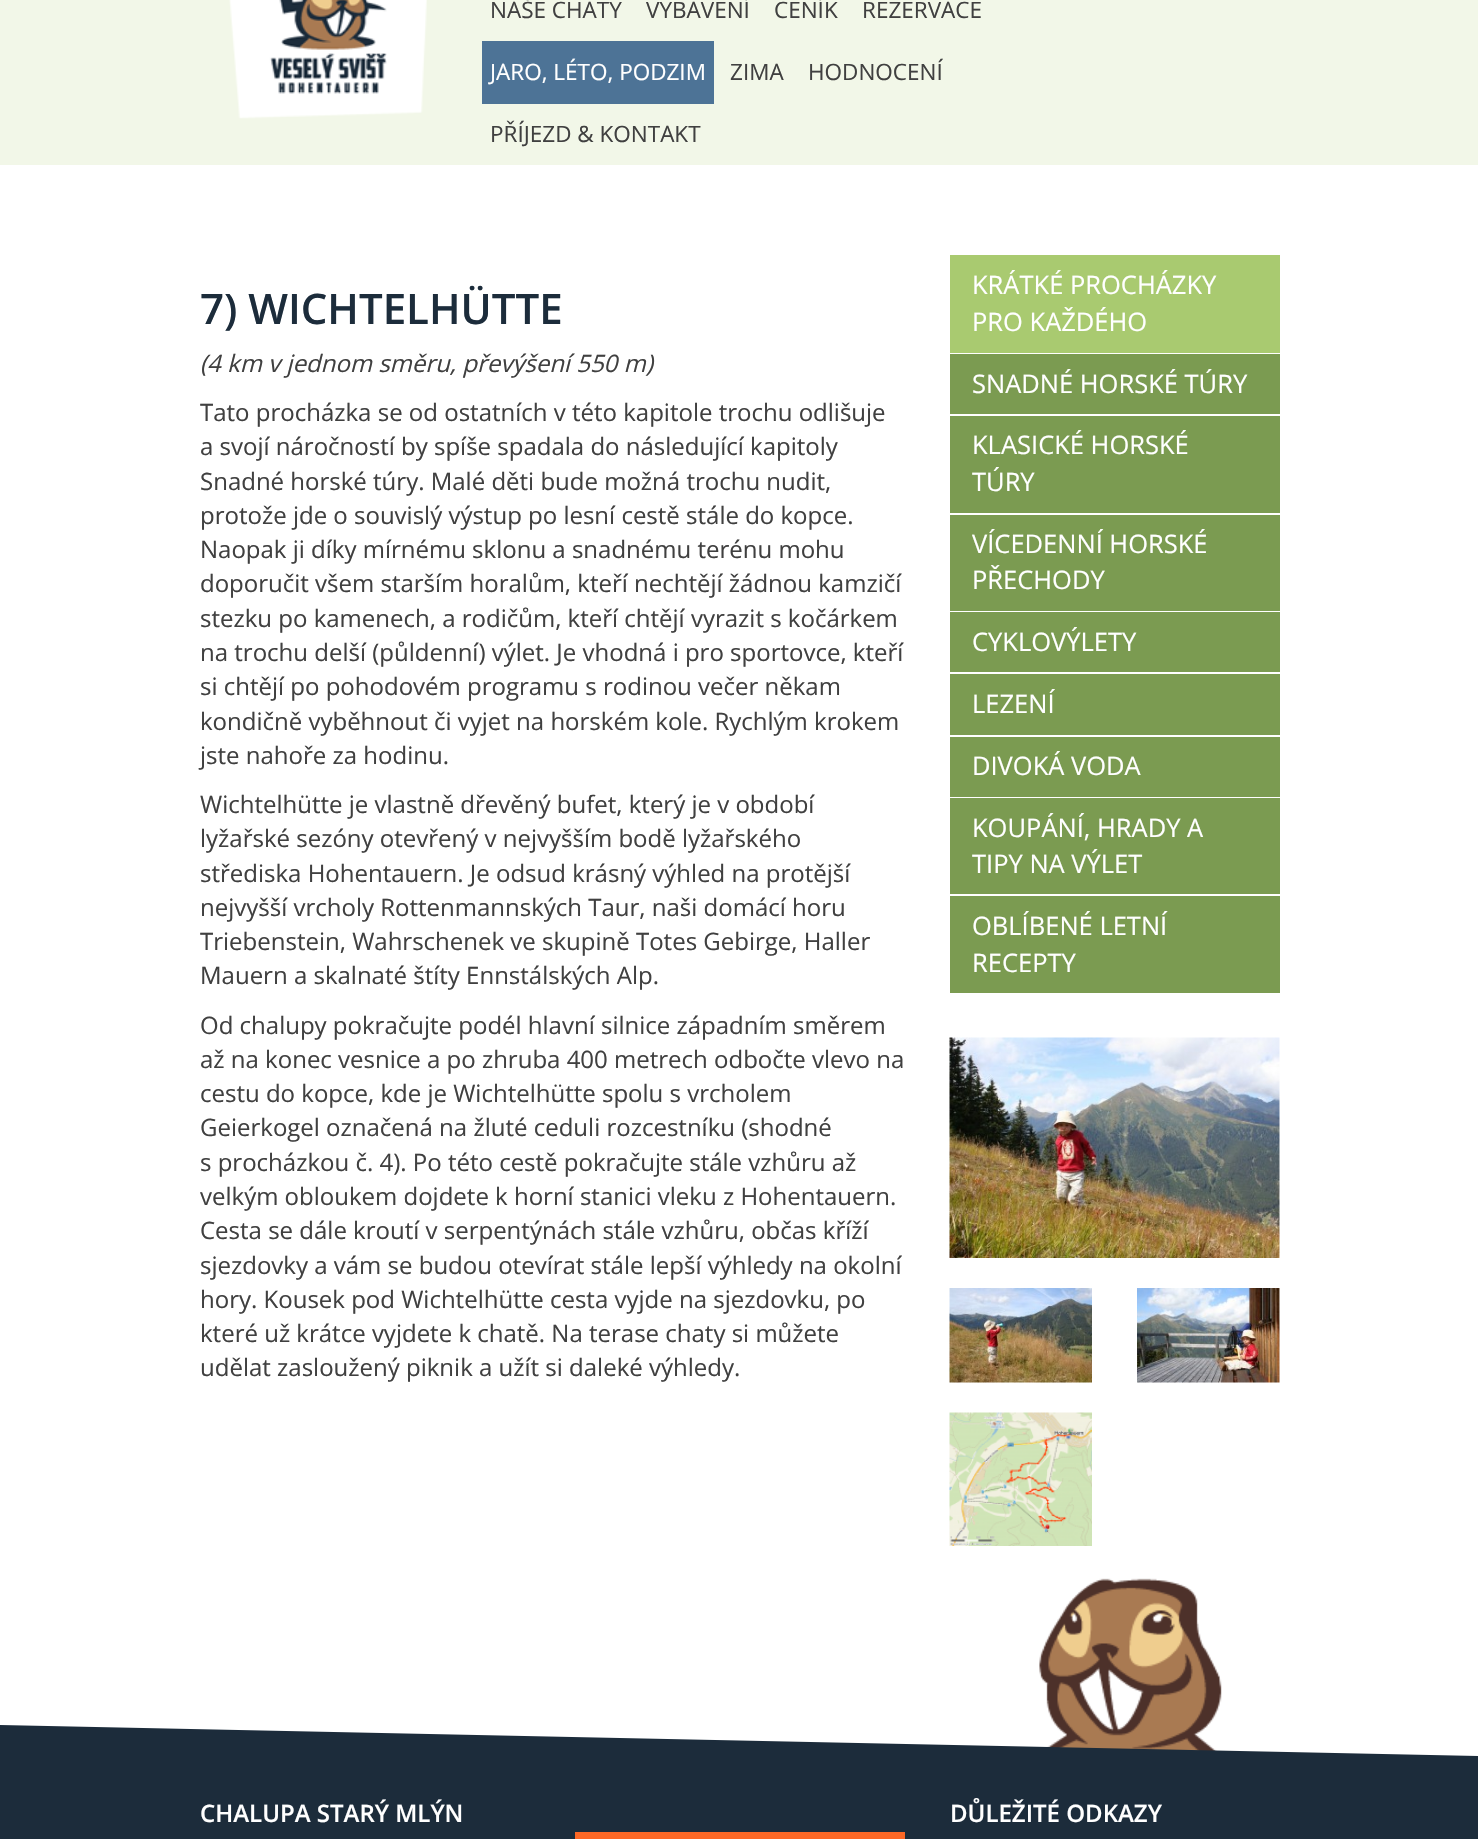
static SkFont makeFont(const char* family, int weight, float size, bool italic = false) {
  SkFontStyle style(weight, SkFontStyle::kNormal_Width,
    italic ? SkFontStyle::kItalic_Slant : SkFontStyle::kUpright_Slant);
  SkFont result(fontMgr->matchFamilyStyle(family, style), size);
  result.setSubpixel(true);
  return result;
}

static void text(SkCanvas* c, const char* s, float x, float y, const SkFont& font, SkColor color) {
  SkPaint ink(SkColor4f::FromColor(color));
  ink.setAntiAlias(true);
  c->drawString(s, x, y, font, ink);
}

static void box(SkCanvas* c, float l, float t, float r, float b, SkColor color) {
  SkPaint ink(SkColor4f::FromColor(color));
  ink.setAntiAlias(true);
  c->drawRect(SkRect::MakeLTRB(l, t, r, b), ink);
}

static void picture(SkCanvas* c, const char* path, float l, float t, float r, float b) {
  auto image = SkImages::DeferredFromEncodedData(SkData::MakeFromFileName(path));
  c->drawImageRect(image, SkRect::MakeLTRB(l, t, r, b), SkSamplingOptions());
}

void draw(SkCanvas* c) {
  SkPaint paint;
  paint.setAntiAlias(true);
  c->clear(0xffffffff);
  box(c, 0, 0, 1478, 165, 0xfff2f7e8);
  picture(c, "img_01.png", 229, 0, 427, 119);
  SkFont face1 = makeFont("Open Sans", 400, 22.5f);
  text(c, "NAŠE CHATY", 490, 18, face1, 0xff404040);
  text(c, "VYBAVENÍ", 646, 18, face1, 0xff404040);
  text(c, "CENÍK", 774, 18, face1, 0xff404040);
  text(c, "REZERVACE", 862, 18, face1, 0xff404040);
  box(c, 482, 41, 714, 104, 0xff4d7396);
  text(c, "JARO, LÉTO, PODZIM", 490, 80, face1, 0xffffffff);
  text(c, "ZIMA", 730, 80, face1, 0xff404040);
  text(c, "HODNOCENÍ", 808, 80, face1, 0xff404040);
  text(c, "PŘÍJEZD & KONTAKT", 490, 142, face1, 0xff404040);
  SkFont face2 = makeFont("Open Sans", 600, 42);
  text(c, "7) WICHTELHÜTTE", 200, 324, face2, 0xff1c2c3b);
  SkFont face3 = makeFont("Open Sans", 400, 24, true);
  text(c, "(4 km v jednom směru, převýšení 550 m)", 200, 372, face3, 0xff404040);
  SkFont face4 = makeFont("Open Sans", 400, 24);
  text(c, "Tato procházka se od ostatních v této kapitole trochu odlišuje", 200, 421, face4, 0xff404040);
  text(c, "a svojí náročností by spíše spadala do následující kapitoly", 200, 455, face4, 0xff404040);
  text(c, "Snadné horské túry. Malé děti bude možná trochu nudit,", 200, 490, face4, 0xff404040);
  text(c, "protože jde o souvislý výstup po lesní cestě stále do kopce.", 200, 524, face4, 0xff404040);
  text(c, "Naopak ji díky mírnému sklonu a snadnému terénu mohu", 200, 558, face4, 0xff404040);
  text(c, "doporučit všem starším horalům, kteří nechtějí žádnou kamzičí", 200, 592, face4, 0xff404040);
  text(c, "stezku po kamenech, a rodičům, kteří chtějí vyrazit s kočárkem", 200, 627, face4, 0xff404040);
  text(c, "na trochu delší (půldenní) výlet. Je vhodná i pro sportovce, kteří", 200, 661, face4, 0xff404040);
  text(c, "si chtějí po pohodovém programu s rodinou večer někam", 200, 695, face4, 0xff404040);
  text(c, "kondičně vyběhnout či vyjet na horském kole. Rychlým krokem", 200, 730, face4, 0xff404040);
  text(c, "jste nahoře za hodinu.", 200, 764, face4, 0xff404040);
  text(c, "Wichtelhütte je vlastně dřevěný bufet, který je v období", 200, 813, face4, 0xff404040);
  text(c, "lyžařské sezóny otevřený v nejvyšším bodě lyžařského", 200, 847, face4, 0xff404040);
  text(c, "střediska Hohentauern. Je odsud krásný výhled na protější", 200, 882, face4, 0xff404040);
  text(c, "nejvyšší vrcholy Rottenmannských Taur, naši domácí horu", 200, 916, face4, 0xff404040);
  text(c, "Triebenstein, Wahrschenek ve skupině Totes Gebirge, Haller", 200, 950, face4, 0xff404040);
  text(c, "Mauern a skalnaté štíty Ennstálských Alp.", 200, 984, face4, 0xff404040);
  text(c, "Od chalupy pokračujte podél hlavní silnice západním směrem", 200, 1034, face4, 0xff404040);
  text(c, "až na konec vesnice a po zhruba 400 metrech odbočte vlevo na", 200, 1068, face4, 0xff404040);
  text(c, "cestu do kopce, kde je Wichtelhütte spolu s vrcholem", 200, 1102, face4, 0xff404040);
  text(c, "Geierkogel označená na žluté ceduli rozcestníku (shodné", 200, 1136, face4, 0xff404040);
  text(c, "s procházkou č. 4). Po této cestě pokračujte stále vzhůru až", 200, 1171, face4, 0xff404040);
  text(c, "velkým obloukem dojdete k horní stanici vleku z Hohentauern.", 200, 1205, face4, 0xff404040);
  text(c, "Cesta se dále kroutí v serpentýnách stále vzhůru, občas kříží", 200, 1239, face4, 0xff404040);
  text(c, "sjezdovky a vám se budou otevírat stále lepší výhledy na okolní", 200, 1274, face4, 0xff404040);
  text(c, "hory. Kousek pod Wichtelhütte cesta vyjde na sjezdovku, po", 200, 1308, face4, 0xff404040);
  text(c, "které už krátce vyjdete k chatě. Na terase chaty si můžete", 200, 1342, face4, 0xff404040);
  text(c, "udělat zasloužený piknik a užít si daleké výhledy.", 200, 1376, face4, 0xff404040);
  box(c, 950, 255, 1280, 353, 0xffa9ca70);
  SkFont face5 = makeFont("Open Sans", 400, 25.5f);
  text(c, "KRÁTKÉ PROCHÁZKY", 972, 294, face5, 0xffffffff);
  text(c, "PRO KAŽDÉHO", 972, 331, face5, 0xffffffff);
  box(c, 950, 354, 1280, 414, 0xff7b9b51);
  text(c, "SNADNÉ HORSKÉ TÚRY", 972, 393, face5, 0xffffffff);
  box(c, 950, 416, 1280, 513, 0xff7b9b51);
  text(c, "KLASICKÉ HORSKÉ", 972, 454, face5, 0xffffffff);
  text(c, "TÚRY", 972, 491, face5, 0xffffffff);
  box(c, 950, 515, 1280, 611, 0xff7b9b51);
  text(c, "VÍCEDENNÍ HORSKÉ", 972, 553, face5, 0xffffffff);
  text(c, "PŘECHODY", 972, 589, face5, 0xffffffff);
  box(c, 950, 612, 1280, 672, 0xff7b9b51);
  text(c, "CYKLOVÝLETY", 972, 651, face5, 0xffffffff);
  box(c, 950, 674, 1280, 735, 0xff7b9b51);
  text(c, "LEZENÍ", 972, 713, face5, 0xffffffff);
  box(c, 950, 737, 1280, 797, 0xff7b9b51);
  text(c, "DIVOKÁ VODA", 972, 775, face5, 0xffffffff);
  box(c, 950, 798, 1280, 894, 0xff7b9b51);
  text(c, "KOUPÁNÍ, HRADY A", 972, 837, face5, 0xffffffff);
  text(c, "TIPY NA VÝLET", 972, 873, face5, 0xffffffff);
  box(c, 950, 896, 1280, 993, 0xff7b9b51);
  text(c, "OBLÍBENÉ LETNÍ", 972, 935, face5, 0xffffffff);
  text(c, "RECEPTY", 972, 972, face5, 0xffffffff);
  picture(c, "img_02.png", 949, 1037, 1280, 1258);
  picture(c, "img_03.png", 949, 1288, 1092, 1383);
  picture(c, "img_04.png", 1137, 1288, 1280, 1383);
  picture(c, "img_05.png", 949, 1412, 1092, 1546);
  picture(c, "img_06.png", 1039, 1578, 1222, 1751);
  paint.setColor(0xff1c2c3b);
  c->drawPath(SkPathBuilder().moveTo(0, 1725).lineTo(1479, 1756).lineTo(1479, 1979).lineTo(0, 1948).close().detach(), paint);
  SkFont face6 = makeFont("Open Sans", 600, 24);
  text(c, "CHALUPA STARÝ MLÝN", 200, 1822, face6, 0xffffffff);
  text(c, "DŮLEŽITÉ ODKAZY", 950, 1822, face6, 0xffffffff);
  box(c, 575, 1832, 905, 1839, 0xfffc6826);
}
